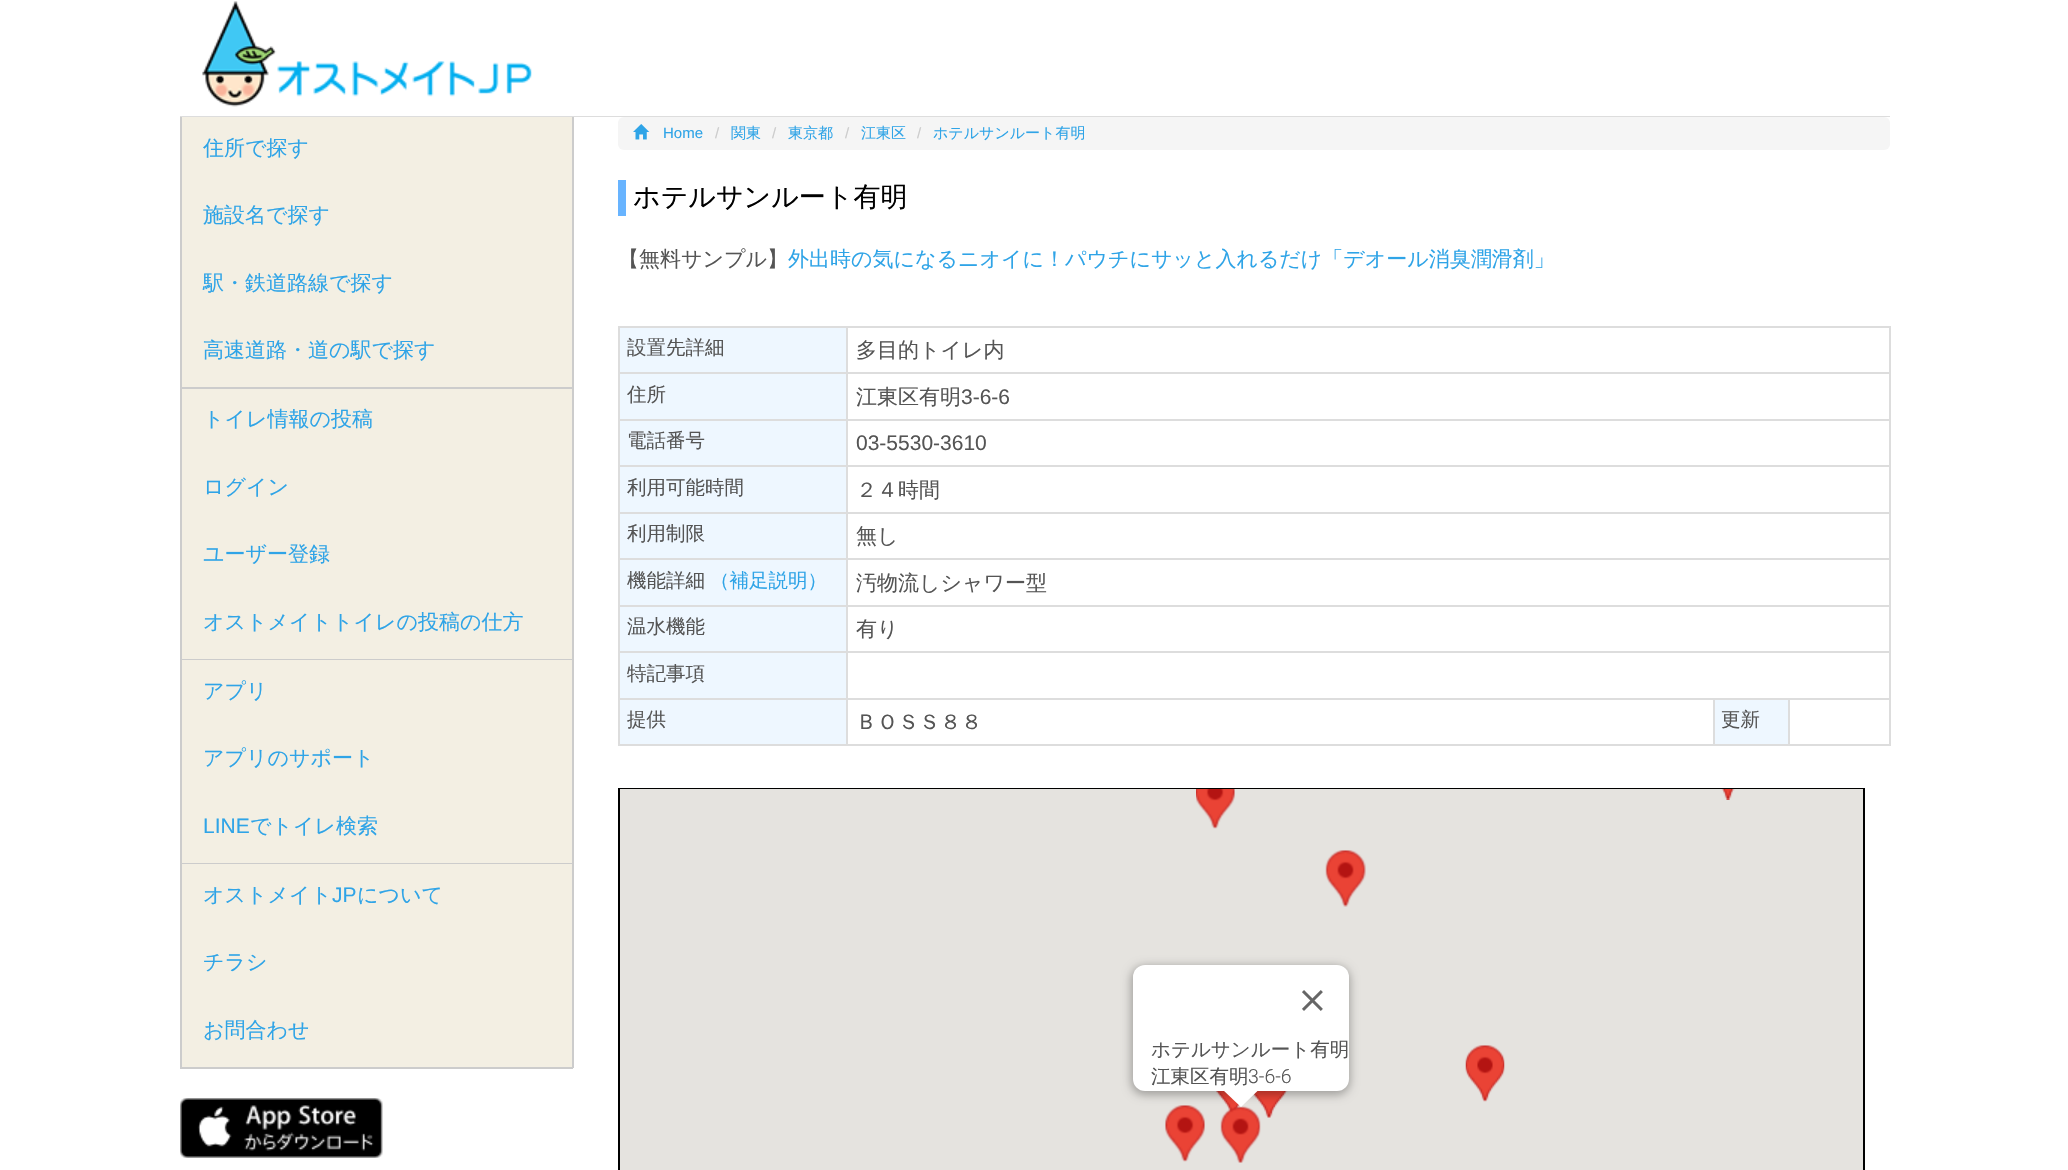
static SkFont makeFont(const char* family, int weight, float size, bool italic = false) {
  SkFontStyle style(weight, SkFontStyle::kNormal_Width,
    italic ? SkFontStyle::kItalic_Slant : SkFontStyle::kUpright_Slant);
  SkFont result(fontMgr->matchFamilyStyle(family, style), size);
  result.setSubpixel(true);
  return result;
}

static void text(SkCanvas* c, const char* s, float x, float y, const SkFont& font, SkColor color) {
  SkPaint ink(SkColor4f::FromColor(color));
  ink.setAntiAlias(true);
  c->drawString(s, x, y, font, ink);
}

static void box(SkCanvas* c, float l, float t, float r, float b, SkColor color) {
  SkPaint ink(SkColor4f::FromColor(color));
  ink.setAntiAlias(true);
  c->drawRect(SkRect::MakeLTRB(l, t, r, b), ink);
}

static void roundBox(SkCanvas* c, float l, float t, float r, float b, float radius, SkColor color) {
  SkPaint ink(SkColor4f::FromColor(color));
  ink.setAntiAlias(true);
  c->drawRoundRect(SkRect::MakeLTRB(l, t, r, b), radius, radius, ink);
}

static void picture(SkCanvas* c, const char* path, float l, float t, float r, float b) {
  auto image = SkImages::DeferredFromEncodedData(SkData::MakeFromFileName(path));
  c->drawImageRect(image, SkRect::MakeLTRB(l, t, r, b), SkSamplingOptions());
}

void draw(SkCanvas* c) {
  SkPaint paint;
  paint.setAntiAlias(true);
  c->clear(0xffffffff);
  box(c, 180, 116, 1890, 117, 0xffdddddd);
  picture(c, "img_01.png", 202, 1, 532, 107);
  box(c, 182, 117, 572, 387, 0xfff3efe3);
  box(c, 572, 117, 574, 1068, 0xffcccccc);
  box(c, 180, 387, 573, 389, 0xffcccccc);
  box(c, 180, 117, 182, 389, 0xffcccccc);
  SkFont face1 = makeFont("WenQuanYi Zen Hei", 500, 21);
  text(c, "住所で探す", 203, 155, face1, 0xff2fa4e7);
  text(c, "施設名で探す", 203, 222, face1, 0xff2fa4e7);
  text(c, "駅・鉄道路線で探す", 203, 290, face1, 0xff2fa4e7);
  text(c, "高速道路・道の駅で探す", 203, 357, face1, 0xff2fa4e7);
  box(c, 182, 389, 572, 659, 0xfff3efe3);
  box(c, 180, 659, 573, 660, 0xffcccccc);
  box(c, 180, 389, 182, 660, 0xffcccccc);
  text(c, "トイレ情報の投稿", 203, 426, face1, 0xff2fa4e7);
  text(c, "ログイン", 203, 494, face1, 0xff2fa4e7);
  text(c, "ユーザー登録", 203, 561, face1, 0xff2fa4e7);
  text(c, "オストメイトトイレの投稿の仕方", 203, 629, face1, 0xff2fa4e7);
  box(c, 182, 660, 572, 863, 0xfff3efe3);
  box(c, 180, 863, 573, 864, 0xffcccccc);
  box(c, 180, 660, 182, 864, 0xffcccccc);
  text(c, "アプリ", 203, 698, face1, 0xff2fa4e7);
  text(c, "アプリのサポート", 203, 765, face1, 0xff2fa4e7);
  SkFont face2 = makeFont("Liberation Sans", 400, 21);
  text(c, "LINE", 203, 833, face2, 0xff2fa4e7);
  text(c, "でトイレ検索", 250, 833, face1, 0xff2fa4e7);
  box(c, 182, 864, 572, 1067, 0xfff3efe3);
  box(c, 180, 1067, 573, 1069, 0xffcccccc);
  box(c, 180, 864, 182, 1068, 0xffcccccc);
  text(c, "オストメイト", 203, 902, face1, 0xff2fa4e7);
  text(c, "JP", 332, 902, face2, 0xff2fa4e7);
  text(c, "について", 357, 902, face1, 0xff2fa4e7);
  text(c, "チラシ", 203, 969, face1, 0xff2fa4e7);
  text(c, "お問合わせ", 203, 1037, face1, 0xff2fa4e7);
  picture(c, "img_02.png", 180, 1098, 383, 1158);
  roundBox(c, 618, 117, 1890, 150, 6, 0xfff5f5f5);
  picture(c, "img_03.png", 633, 124, 650, 140);
  SkFont face3 = makeFont("Liberation Sans", 400, 15);
  text(c, "Home", 663, 138, face3, 0xff2fa4e7);
  text(c, "/", 715, 138, face3, 0xffcccccc);
  SkFont face4 = makeFont("WenQuanYi Zen Hei", 500, 15);
  text(c, "関東", 731, 138, face4, 0xff2fa4e7);
  text(c, "/", 772, 138, face3, 0xffcccccc);
  text(c, "東京都", 788, 138, face4, 0xff2fa4e7);
  text(c, "/", 845, 138, face3, 0xffcccccc);
  text(c, "江東区", 861, 138, face4, 0xff2fa4e7);
  text(c, "/", 917, 138, face3, 0xffcccccc);
  text(c, "ホテルサンルート有明", 933, 138, face4, 0xff2fa4e7);
  box(c, 618, 180, 626, 216, 0xff68b4ff);
  SkFont face5 = makeFont("WenQuanYi Zen Hei", 500, 27);
  text(c, "ホテルサンルート有明", 633, 206, face5, 0xff000000);
  text(c, "【無料サンプル】", 618, 266, face1, 0xff555555);
  text(c, "外出時の気になるニオイに！パウチにサッと入れるだけ「デオール消臭潤滑剤」", 788, 266, face1, 0xff2fa4e7);
  box(c, 618, 326, 1890, 328, 0xffdddddd);
  box(c, 1889, 326, 1891, 746, 0xffdddddd);
  box(c, 618, 744, 1890, 746, 0xffdddddd);
  box(c, 618, 326, 620, 746, 0xffdddddd);
  box(c, 620, 328, 846, 372, 0xffeef7ff);
  SkFont face6 = makeFont("WenQuanYi Zen Hei", 500, 19.5f);
  text(c, "設置先詳細", 627, 354, face6, 0xff555555);
  box(c, 846, 372, 1890, 374, 0xffdddddd);
  box(c, 846, 419, 1890, 421, 0xffdddddd);
  box(c, 846, 465, 1890, 467, 0xffdddddd);
  box(c, 846, 512, 1890, 514, 0xffdddddd);
  box(c, 846, 558, 1890, 560, 0xffdddddd);
  box(c, 846, 605, 1890, 607, 0xffdddddd);
  box(c, 846, 651, 1890, 653, 0xffdddddd);
  box(c, 1788, 698, 1890, 700, 0xffdddddd);
  box(c, 1788, 698, 1790, 746, 0xffdddddd);
  box(c, 1713, 698, 1790, 700, 0xffdddddd);
  box(c, 1713, 698, 1715, 746, 0xffdddddd);
  box(c, 846, 698, 1715, 700, 0xffdddddd);
  box(c, 846, 698, 848, 746, 0xffdddddd);
  box(c, 618, 698, 848, 700, 0xffdddddd);
  box(c, 846, 651, 848, 699, 0xffdddddd);
  box(c, 618, 651, 848, 653, 0xffdddddd);
  box(c, 846, 605, 848, 653, 0xffdddddd);
  box(c, 618, 605, 848, 607, 0xffdddddd);
  box(c, 846, 558, 848, 606, 0xffdddddd);
  box(c, 618, 558, 848, 560, 0xffdddddd);
  box(c, 846, 512, 848, 560, 0xffdddddd);
  box(c, 618, 512, 848, 514, 0xffdddddd);
  box(c, 846, 465, 848, 513, 0xffdddddd);
  box(c, 618, 465, 848, 467, 0xffdddddd);
  box(c, 846, 419, 848, 467, 0xffdddddd);
  box(c, 618, 419, 848, 421, 0xffdddddd);
  box(c, 846, 372, 848, 420, 0xffdddddd);
  box(c, 618, 372, 848, 374, 0xffdddddd);
  box(c, 846, 326, 848, 374, 0xffdddddd);
  text(c, "多目的トイレ内", 856, 357, face1, 0xff555555);
  box(c, 620, 374, 846, 419, 0xffeef7ff);
  text(c, "住所", 627, 401, face6, 0xff555555);
  text(c, "江東区有明", 856, 404, face1, 0xff555555);
  text(c, "3-6-6", 961, 404, face2, 0xff555555);
  box(c, 620, 421, 846, 465, 0xffeef7ff);
  text(c, "電話番号", 627, 447, face6, 0xff555555);
  text(c, "03-5530-3610", 856, 450, face2, 0xff555555);
  box(c, 620, 467, 846, 512, 0xffeef7ff);
  text(c, "利用可能時間", 627, 494, face6, 0xff555555);
  text(c, "２４時間", 856, 497, face1, 0xff555555);
  box(c, 620, 514, 846, 558, 0xffeef7ff);
  text(c, "利用制限", 627, 540, face6, 0xff555555);
  text(c, "無し", 856, 543, face1, 0xff555555);
  box(c, 620, 560, 846, 605, 0xffeef7ff);
  text(c, "機能詳細", 627, 587, face6, 0xff555555);
  text(c, "（補足説明）", 710, 587, face6, 0xff2fa4e7);
  text(c, "汚物流しシャワー型", 856, 590, face1, 0xff555555);
  box(c, 620, 607, 846, 651, 0xffeef7ff);
  text(c, "温水機能", 627, 633, face6, 0xff555555);
  text(c, "有り", 856, 636, face1, 0xff555555);
  box(c, 620, 653, 846, 698, 0xffeef7ff);
  text(c, "特記事項", 627, 680, face6, 0xff555555);
  box(c, 620, 700, 846, 744, 0xffeef7ff);
  text(c, "提供", 627, 726, face6, 0xff555555);
  text(c, "ＢＯＳＳ８８", 856, 729, face1, 0xff555555);
  box(c, 1715, 700, 1788, 744, 0xffeef7ff);
  text(c, "更新", 1721, 726, face6, 0xff555555);
  paint.setStyle(SkPaint::kStroke_Style);
  paint.setStrokeWidth(2);
  paint.setColor(0xff000000);
  c->drawRect(SkRect::MakeLTRB(619, 789, 1864, 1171), paint);
  box(c, 620, 789, 1863, 1170, 0xffe5e3df);
  picture(c, "img_04.png", 1196, 789, 1235, 829);
  picture(c, "img_05.png", 1721, 789, 1735, 800);
  picture(c, "img_06.png", 1325, 850, 1366, 907);
  picture(c, "img_07.png", 1165, 1105, 1205, 1162);
  picture(c, "img_08.png", 1216, 1091, 1240, 1114);
  picture(c, "img_09.png", 1253, 1091, 1288, 1118);
  picture(c, "img_10.png", 1465, 1045, 1505, 1102);
  picture(c, "img_11.png", 1220, 1106, 1261, 1163);
  paint.setStyle(SkPaint::kFill_Style);
  paint.setColor(0x4d000000);
  paint.setMaskFilter(SkMaskFilter::MakeBlur(kNormal_SkBlurStyle, 5));
  c->drawRoundRect(SkRect::MakeLTRB(1131, 966, 1350, 1095), 14, 14, paint);
  paint.setMaskFilter(nullptr);
  roundBox(c, 1133, 965, 1349, 1091, 12, 0xffffffff);
  picture(c, "img_12.png", 1302, 990, 1323, 1011);
  text(c, "ホテルサンルート有明", 1151, 1056, face6, 0xff555555);
  text(c, "江東区有明", 1151, 1083, face6, 0xff555555);
  SkFont face7 = makeFont("Roboto", 300, 19.5f);
  text(c, "3-6-6", 1248, 1083, face7, 0xff555555);
  paint.setColor(0xffffffff);
  c->drawPath(SkPathBuilder().moveTo(1223, 1090).lineTo(1223, 1089).lineTo(1259.5f, 1089).lineTo(1241, 1107).close().detach(), paint);
}
